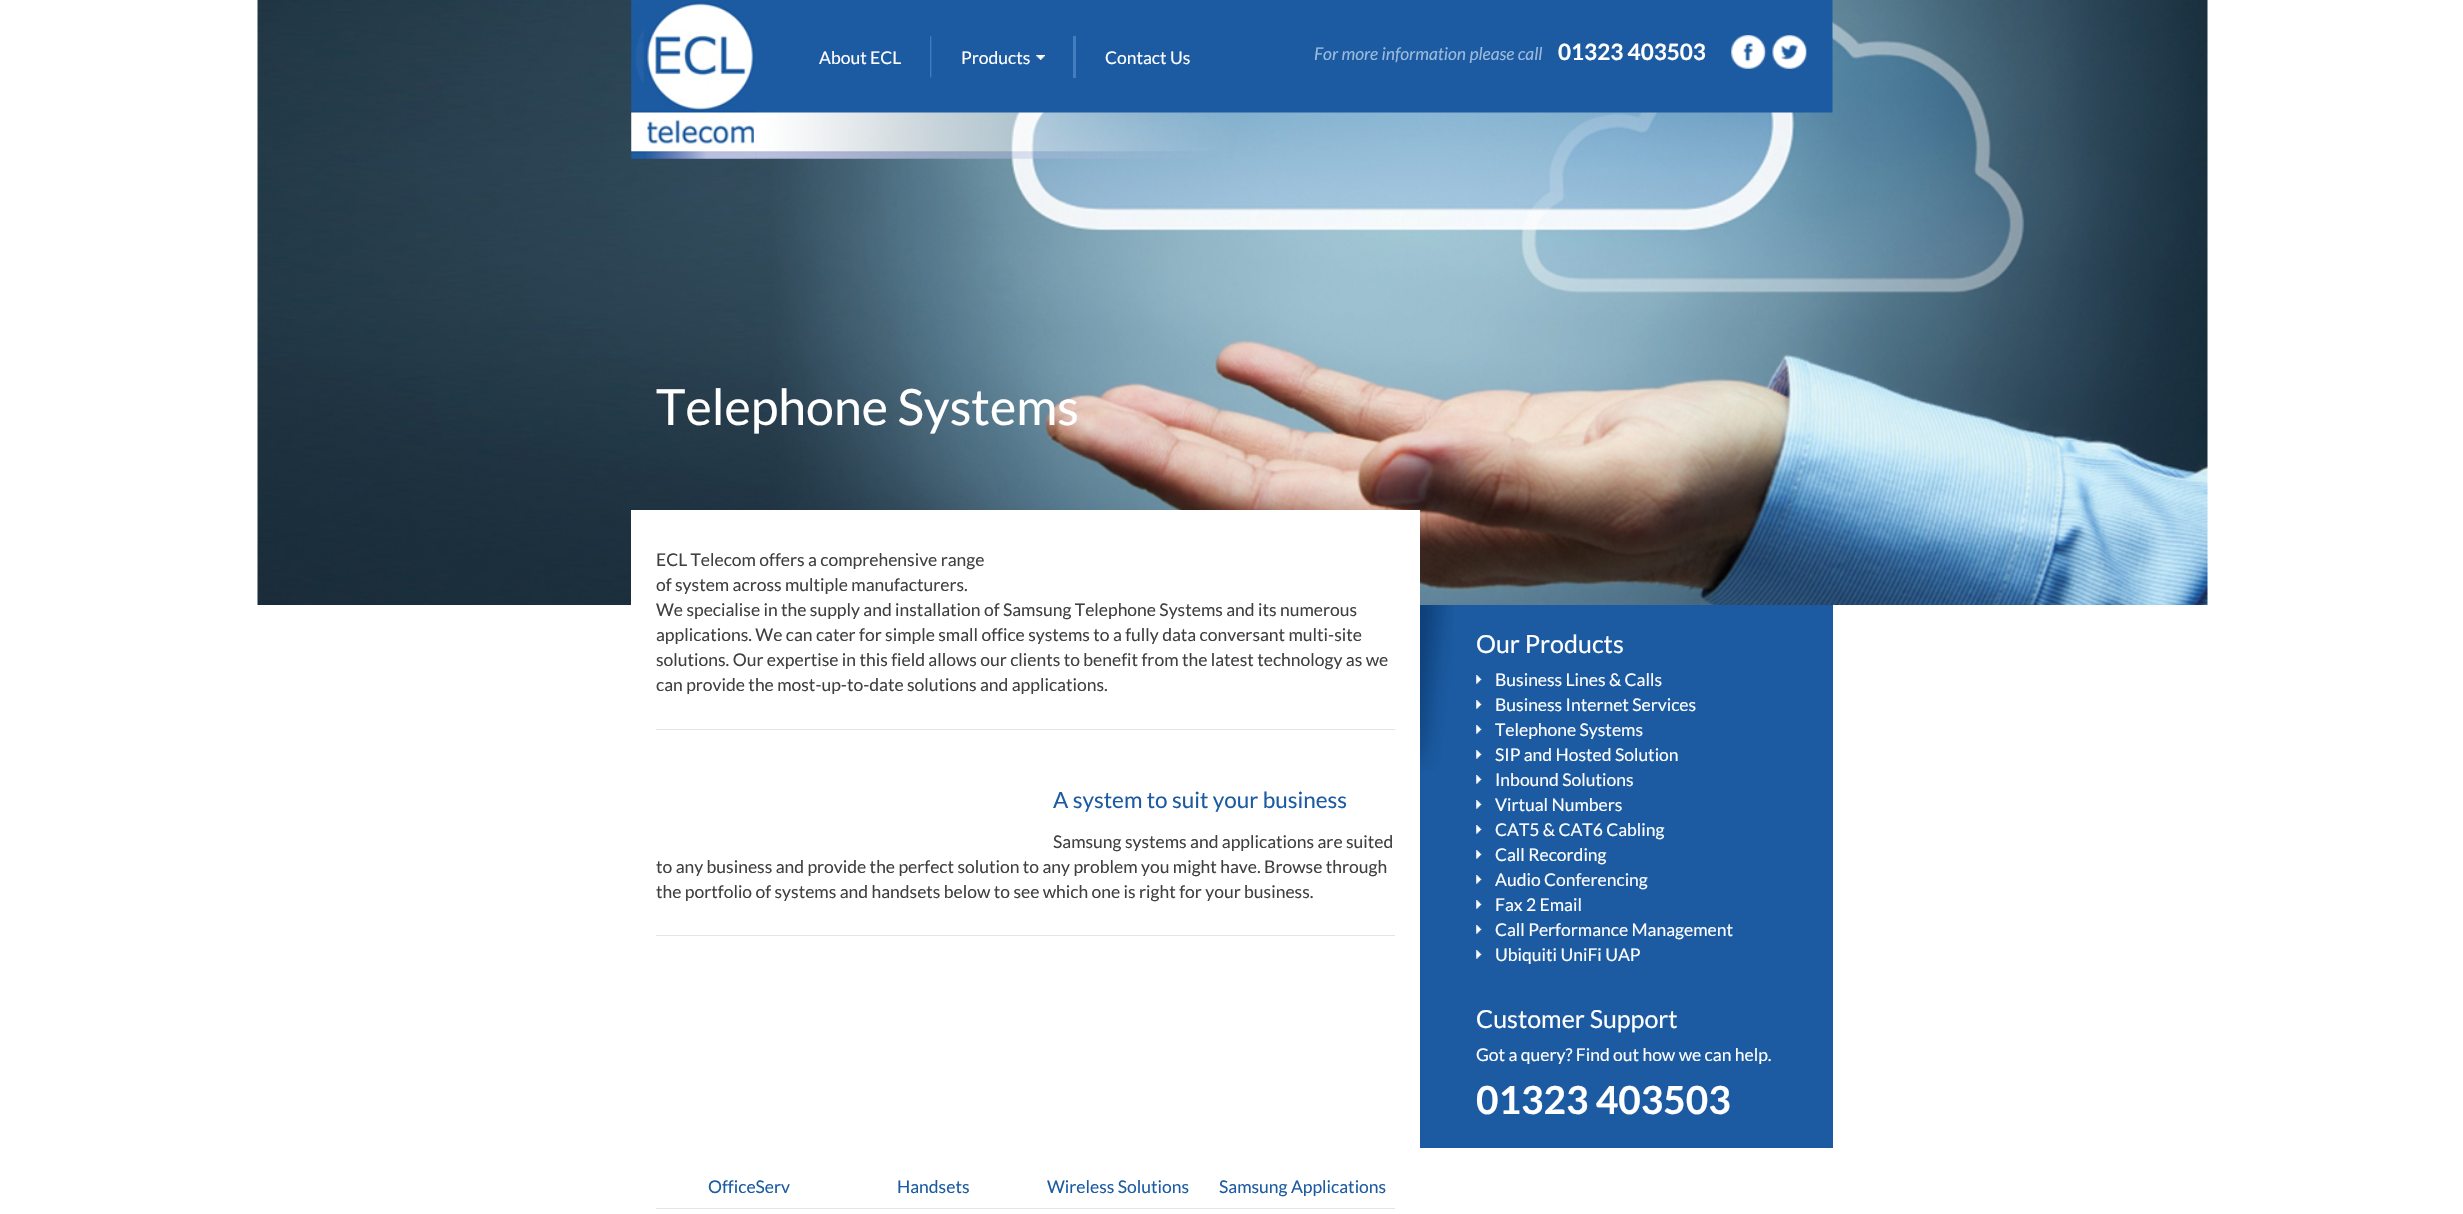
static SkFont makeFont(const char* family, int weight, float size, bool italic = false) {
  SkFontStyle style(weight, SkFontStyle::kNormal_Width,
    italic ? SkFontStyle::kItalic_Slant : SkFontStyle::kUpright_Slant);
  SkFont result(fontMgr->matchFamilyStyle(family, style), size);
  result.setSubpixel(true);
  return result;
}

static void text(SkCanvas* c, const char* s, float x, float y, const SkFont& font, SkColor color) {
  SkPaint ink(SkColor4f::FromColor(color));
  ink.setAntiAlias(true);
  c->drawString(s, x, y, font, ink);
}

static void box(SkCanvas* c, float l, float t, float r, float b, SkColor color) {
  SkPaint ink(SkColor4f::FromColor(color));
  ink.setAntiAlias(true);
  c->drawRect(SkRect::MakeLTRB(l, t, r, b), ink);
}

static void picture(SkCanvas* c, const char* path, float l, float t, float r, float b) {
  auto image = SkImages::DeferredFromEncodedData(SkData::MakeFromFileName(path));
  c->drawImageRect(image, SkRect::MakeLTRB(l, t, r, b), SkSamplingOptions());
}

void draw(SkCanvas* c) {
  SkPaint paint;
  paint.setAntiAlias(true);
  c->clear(0xffffffff);
  picture(c, "img_01.png", 257, 0, 2208, 605);
  picture(c, "img_02.png", 631, 0, 1833, 159);
  picture(c, "img_03.png", 930, 36, 932, 78);
  SkFont face1 = makeFont("Lato", 400, 17.5f);
  text(c, "About ECL", 819, 64, face1, 0xffffffff);
  box(c, 1073, 36, 1076, 78, 0xff427ebf);
  text(c, "Products", 961, 64, face1, 0xffffffff);
  picture(c, "img_04.png", 1036, 55, 1045, 60);
  text(c, "Contact Us", 1105, 64, face1, 0xffffffff);
  SkFont face2 = makeFont("Lato", 400, 17.5f, true);
  text(c, "For more information please call", 1314, 60, face2, 0xff9abadd);
  SkFont face3 = makeFont("Lato", 700, 22.5f);
  text(c, "01323 403503", 1558, 60, face3, 0xffffffff);
  picture(c, "img_05.png", 1731, 35, 1767, 69);
  picture(c, "img_06.png", 1772, 35, 1807, 69);
  SkFont face4 = makeFont("Lato", 400, 50);
  text(c, "Telephone Systems", 656, 425, face4, 0xffffffff);
  box(c, 631, 510, 1420, 605, 0xffffffff);
  text(c, "ECL Telecom offers a comprehensive range", 656, 566, face1, 0xff404040);
  text(c, "of system across multiple manufacturers.", 656, 591, face1, 0xff404040);
  text(c, "We specialise in the supply and installation of Samsung Telephone Systems and its numerous", 656, 616, face1, 0xff404040);
  text(c, "applications. We can cater for simple small office systems to a fully data conversant multi-site", 656, 641, face1, 0xff404040);
  text(c, "solutions. Our expertise in this field allows our clients to benefit from the latest technology as we", 656, 666, face1, 0xff404040);
  text(c, "can provide the most-up-to-date solutions and applications.", 656, 691, face1, 0xff404040);
  box(c, 656, 729, 1395, 730, 0xffe8e5e0);
  SkFont face5 = makeFont("Lato", 400, 22.5f);
  text(c, "A system to suit your business", 1053, 808, face5, 0xff1c5ba2);
  text(c, "Samsung systems and applications are suited", 1053, 848, face1, 0xff404040);
  text(c, "to any business and provide the perfect solution to any problem you might have. Browse through", 656, 873, face1, 0xff404040);
  text(c, "the portfolio of systems and handsets below to see which one is right for your business.", 656, 898, face1, 0xff404040);
  box(c, 656, 935, 1395, 936, 0xffe8e5e0);
  text(c, "OfficeServ", 708, 1193, face1, 0xff1c5ba2);
  text(c, "Handsets", 897, 1193, face1, 0xff1c5ba2);
  text(c, "Wireless Solutions", 1047, 1193, face1, 0xff1c5ba2);
  text(c, "Samsung Applications", 1219, 1193, face1, 0xff1c5ba2);
  box(c, 656, 1208, 1395, 1209, 0xffe8e5e0);
  box(c, 1420, 605, 1833, 1148, 0xff1c5ba2);
  picture(c, "img_07.png", 1420, 605, 1453, 771);
  SkFont face6 = makeFont("Lato", 400, 25);
  text(c, "Our Products", 1476, 653, face6, 0xffffffff);
  picture(c, "img_08.png", 1476, 675, 1482, 684);
  text(c, "Business Lines & Calls", 1495, 686, face1, 0xffffffff);
  picture(c, "img_08.png", 1476, 700, 1482, 709);
  text(c, "Business Internet Services", 1495, 711, face1, 0xffffffff);
  picture(c, "img_08.png", 1476, 725, 1482, 734);
  text(c, "Telephone Systems", 1495, 736, face1, 0xffffffff);
  picture(c, "img_08.png", 1476, 750, 1482, 759);
  text(c, "SIP and Hosted Solution", 1495, 761, face1, 0xffffffff);
  picture(c, "img_09.png", 1476, 775, 1482, 784);
  text(c, "Inbound Solutions", 1495, 786, face1, 0xffffffff);
  picture(c, "img_08.png", 1476, 800, 1482, 809);
  text(c, "Virtual Numbers", 1495, 811, face1, 0xffffffff);
  picture(c, "img_08.png", 1476, 825, 1482, 834);
  text(c, "CAT5 & CAT6 Cabling", 1495, 836, face1, 0xffffffff);
  picture(c, "img_08.png", 1476, 850, 1482, 859);
  text(c, "Call Recording", 1495, 861, face1, 0xffffffff);
  picture(c, "img_08.png", 1476, 875, 1482, 884);
  text(c, "Audio Conferencing", 1495, 886, face1, 0xffffffff);
  picture(c, "img_08.png", 1476, 900, 1482, 909);
  text(c, "Fax 2 Email", 1495, 911, face1, 0xffffffff);
  picture(c, "img_08.png", 1476, 925, 1482, 934);
  text(c, "Call Performance Management", 1495, 936, face1, 0xffffffff);
  picture(c, "img_08.png", 1476, 950, 1482, 959);
  text(c, "Ubiquiti UniFi UAP", 1495, 961, face1, 0xffffffff);
  text(c, "Customer Support", 1476, 1028, face6, 0xffffffff);
  text(c, "Got a query? Find out how we can help.", 1476, 1061, face1, 0xffffffff);
  SkFont face7 = makeFont("Lato", 700, 38.75f);
  text(c, "01323 403503", 1476, 1114, face7, 0xffffffff);
}
